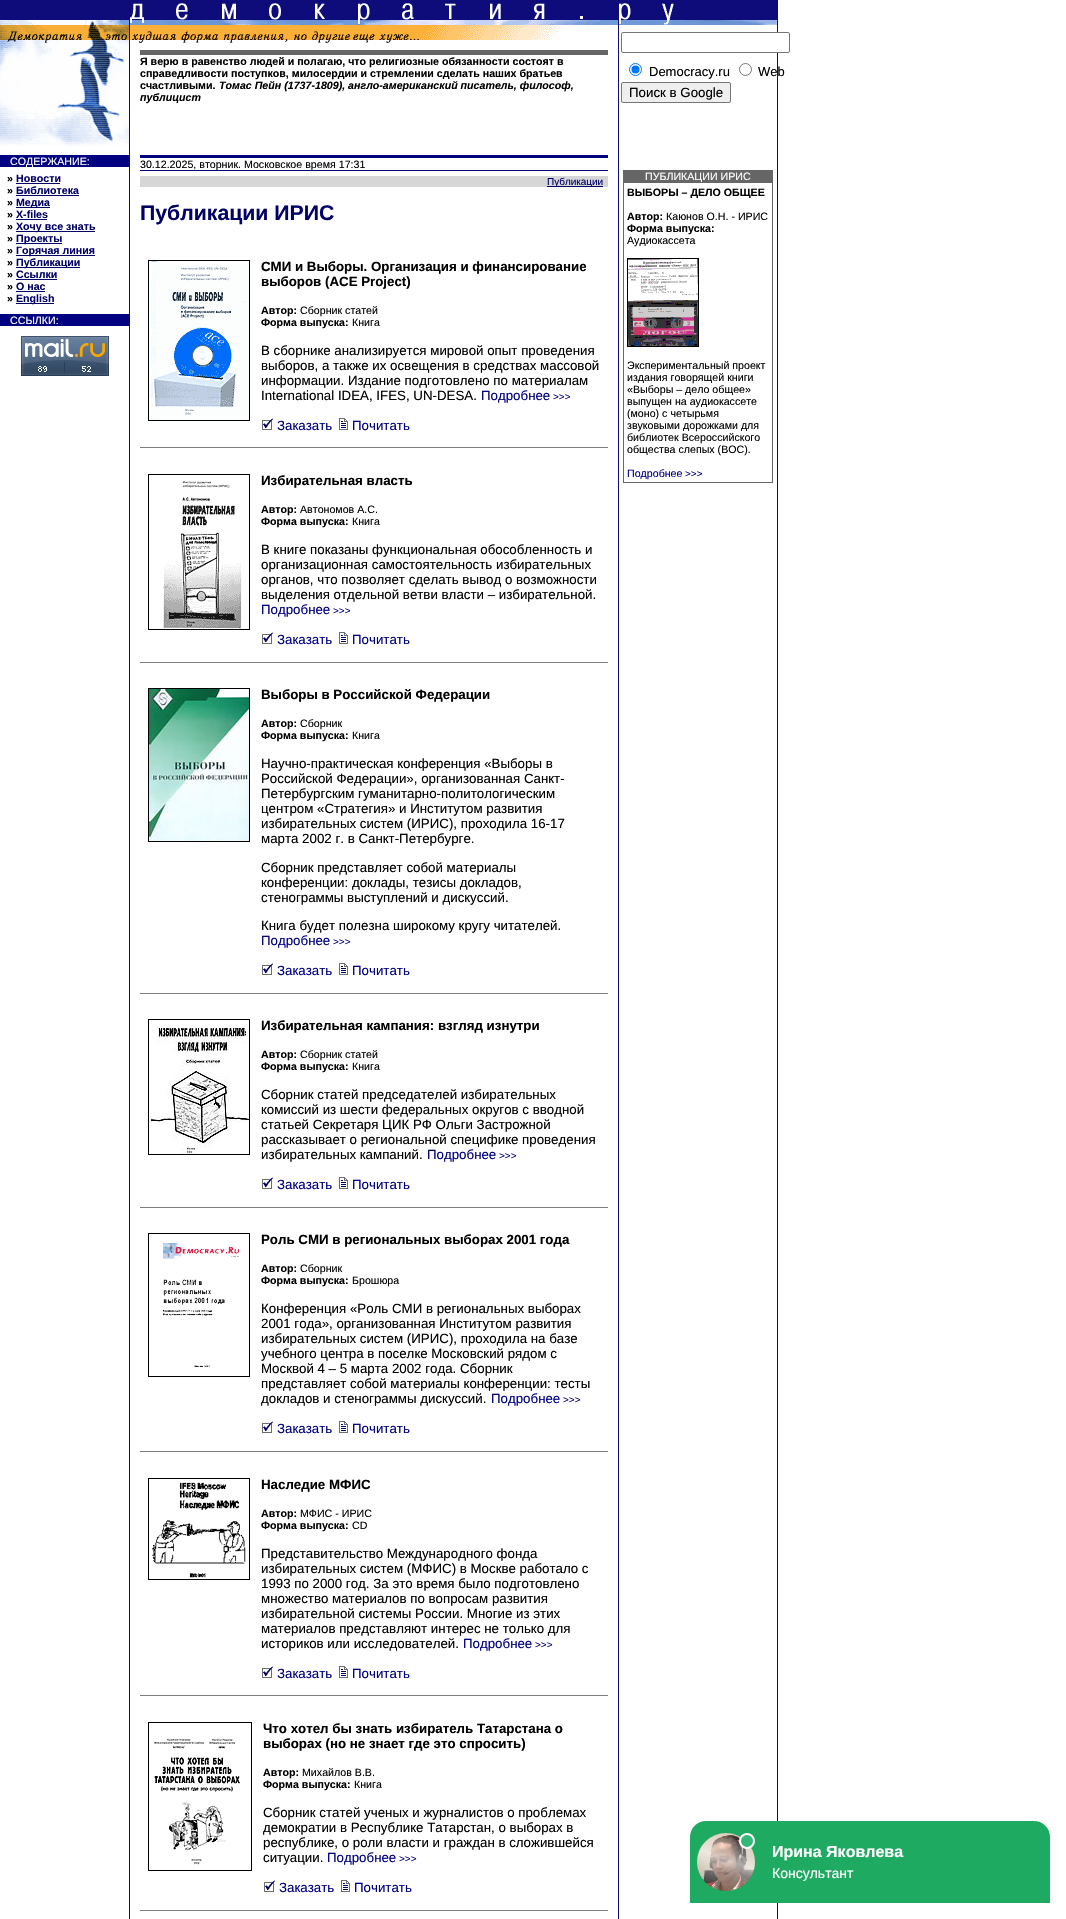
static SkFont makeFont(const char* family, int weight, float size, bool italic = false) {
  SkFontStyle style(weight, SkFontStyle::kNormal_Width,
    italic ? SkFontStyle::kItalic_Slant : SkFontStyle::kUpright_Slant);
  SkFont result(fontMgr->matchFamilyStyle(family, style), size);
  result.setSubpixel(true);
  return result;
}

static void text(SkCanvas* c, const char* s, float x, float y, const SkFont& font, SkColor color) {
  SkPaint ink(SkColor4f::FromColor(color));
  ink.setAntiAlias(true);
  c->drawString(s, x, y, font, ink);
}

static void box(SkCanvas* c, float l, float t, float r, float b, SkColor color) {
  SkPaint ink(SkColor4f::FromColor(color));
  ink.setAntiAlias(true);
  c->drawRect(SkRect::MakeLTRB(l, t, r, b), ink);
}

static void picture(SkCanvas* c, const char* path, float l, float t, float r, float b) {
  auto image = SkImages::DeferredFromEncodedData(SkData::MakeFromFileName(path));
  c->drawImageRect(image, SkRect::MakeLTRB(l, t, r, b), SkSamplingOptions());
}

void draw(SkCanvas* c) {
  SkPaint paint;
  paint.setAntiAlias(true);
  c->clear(0xffffffff);
  picture(c, "img_01.png", 129, 0, 778, 1919);
  picture(c, "img_02.png", 0, 0, 777, 20);
  picture(c, "img_03.png", 0, 20, 129, 25);
  picture(c, "img_04.png", 130, 20, 777, 25);
  picture(c, "img_05.png", 0, 25, 129, 40);
  picture(c, "img_06.png", 0, 40, 129, 146);
  picture(c, "img_07.png", 130, 25, 560, 40);
  picture(c, "img_08.png", 139, 40, 391, 43);
  box(c, 140, 50, 608, 55, 0xff666666);
  SkFont face1 = makeFont("Liberation Sans", 700, 10.65f);
  text(c, "Я верю в равенство людей и полагаю, что религиозные обязанности состоят в", 140, 65, face1, 0xff000000);
  text(c, "справедливости поступков, милосердии и стремлении сделать наших братьев", 140, 77, face1, 0xff000000);
  text(c, "счастливыми.", 140, 89, face1, 0xff000000);
  SkFont face2 = makeFont("Liberation Sans", 700, 10.65f, true);
  text(c, "Томас Пейн (1737-1809), англо-американский писатель, философ,", 219, 89, face2, 0xff000000);
  text(c, "публицист", 140, 101, face2, 0xff000000);
  paint.setColor(0xffffffff);
  c->drawRoundRect(SkRect::MakeLTRB(621.5f, 32.5f, 789.5f, 52.5f), 1.5f, 1.5f, paint);
  paint.setStyle(SkPaint::kStroke_Style);
  paint.setStrokeWidth(1);
  paint.setColor(0xff767676);
  c->drawRoundRect(SkRect::MakeLTRB(621.5f, 32.5f, 789.5f, 52.5f), 1.5f, 1.5f, paint);
  paint.setColor(0xff0075ff);
  c->drawCircle(635.5f, 69.5f, 6, paint);
  paint.setStyle(SkPaint::kFill_Style);
  c->drawCircle(635.5f, 69.5f, 4, paint);
  SkFont face3 = makeFont("Liberation Sans", 400, 13);
  text(c, "Democracy.ru", 649, 76, face3, 0xff000000);
  paint.setStyle(SkPaint::kStroke_Style);
  paint.setColor(0xff767676);
  c->drawCircle(745.5f, 69.5f, 6, paint);
  text(c, "Web", 758, 76, face3, 0xff000000);
  paint.setStyle(SkPaint::kFill_Style);
  paint.setColor(0xffefefef);
  c->drawRoundRect(SkRect::MakeLTRB(621.5f, 82.5f, 730.5f, 102.5f), 1.5f, 1.5f, paint);
  paint.setStyle(SkPaint::kStroke_Style);
  paint.setColor(0xff767676);
  c->drawRoundRect(SkRect::MakeLTRB(621.5f, 82.5f, 730.5f, 102.5f), 1.5f, 1.5f, paint);
  SkFont face4 = makeFont("Liberation Sans", 400, 13.3f);
  text(c, "Поиск в Google", 629, 97, face4, 0xff000000);
  box(c, 0, 155, 130, 167, 0xff000080);
  SkFont face5 = makeFont("Liberation Sans", 400, 10.65f);
  text(c, "СОДЕРЖАНИЕ:", 10, 165, face5, 0xffffffff);
  text(c, "»", 7, 182, face1, 0xff000000);
  text(c, "Новости", 16, 182, face1, 0xff000066);
  box(c, 16, 183, 60, 184, 0xff000066);
  text(c, "»", 7, 194, face1, 0xff000000);
  text(c, "Библиотека", 16, 194, face1, 0xff000066);
  box(c, 16, 195, 79, 196, 0xff000066);
  text(c, "»", 7, 206, face1, 0xff000000);
  box(c, 16, 207, 50, 208, 0xff000066);
  text(c, "Медиа", 16, 206, face1, 0xff000066);
  text(c, "»", 7, 218, face1, 0xff000000);
  text(c, "X-files", 16, 218, face1, 0xff000066);
  box(c, 16, 219, 47, 220, 0xff000066);
  text(c, "»", 7, 230, face1, 0xff000000);
  box(c, 16, 231, 95, 232, 0xff000066);
  text(c, "Хочу все знать", 16, 230, face1, 0xff000066);
  text(c, "»", 7, 242, face1, 0xff000000);
  box(c, 16, 243, 62, 244, 0xff000066);
  text(c, "Проекты", 16, 242, face1, 0xff000066);
  text(c, "»", 7, 254, face1, 0xff000000);
  box(c, 16, 255, 95, 256, 0xff000066);
  text(c, "Горячая линия", 16, 254, face1, 0xff000066);
  text(c, "»", 7, 266, face1, 0xff000000);
  box(c, 16, 267, 80, 268, 0xff000066);
  text(c, "Публикации", 16, 266, face1, 0xff000066);
  text(c, "»", 7, 278, face1, 0xff000000);
  text(c, "Ссылки", 16, 278, face1, 0xff000066);
  box(c, 16, 279, 57, 280, 0xff000066);
  text(c, "»", 7, 290, face1, 0xff000000);
  text(c, "О нас", 16, 290, face1, 0xff000066);
  box(c, 16, 291, 45, 292, 0xff000066);
  text(c, "»", 7, 302, face1, 0xff000000);
  box(c, 16, 303, 54, 304, 0xff000066);
  text(c, "English", 16, 302, face1, 0xff000066);
  box(c, 0, 314, 130, 326, 0xff000080);
  text(c, "ССЫЛКИ:", 10, 324, face5, 0xffffffff);
  picture(c, "img_09.png", 21, 336, 109, 376);
  box(c, 140, 155, 608, 158, 0xff000080);
  box(c, 140, 170, 608, 171, 0xff000080);
  text(c, "30.12.2025, вторник. Московское время 17:31", 140, 168, face5, 0xff000000);
  box(c, 140, 176, 608, 187, 0xffd6d6d6);
  box(c, 547, 186, 603, 187, 0xff000066);
  SkFont face6 = makeFont("Liberation Sans", 400, 10);
  text(c, "Публикации", 547, 185, face6, 0xff000066);
  SkFont face7 = makeFont("Liberation Sans", 700, 21.25f);
  text(c, "Публикации ИРИС", 140, 220, face7, 0xff000066);
  paint.setColor(0xff000000);
  c->drawRect(SkRect::MakeLTRB(148.5f, 260.5f, 249.5f, 420.5f), paint);
  picture(c, "img_10.png", 149, 261, 249, 420);
  SkFont face8 = makeFont("Liberation Sans", 700, 13.3f);
  text(c, "СМИ и Выборы. Организация и финансирование", 261, 271, face8, 0xff000000);
  text(c, "выборов (ACE Project)", 261, 286, face8, 0xff000000);
  text(c, "Автор:", 261, 314, face1, 0xff000000);
  text(c, "Сборник статей", 300, 314, face5, 0xff000000);
  text(c, "Форма выпуска:", 261, 326, face1, 0xff000000);
  text(c, "Книга", 352, 326, face5, 0xff000000);
  text(c, "В сборнике анализируется мировой опыт проведения", 261, 355, face4, 0xff000000);
  text(c, "выборов, а также их освещения в средствах массовой", 261, 370, face4, 0xff000000);
  text(c, "информации. Издание подготовлено по материалам", 261, 385, face4, 0xff000000);
  text(c, "International IDEA, IFES, UN-DESA.", 261, 400, face4, 0xff000000);
  text(c, "Подробнее", 481, 400, face4, 0xff000080);
  text(c, ">>>", 553, 400, face6, 0xff000080);
  picture(c, "img_11.png", 262, 418, 273, 430);
  text(c, "Заказать", 277, 430, face4, 0xff000080);
  picture(c, "img_12.png", 339, 418, 348, 430);
  text(c, "Почитать", 352, 430, face4, 0xff000080);
  box(c, 140, 447, 608, 448, 0xff808080);
  c->drawRect(SkRect::MakeLTRB(148.5f, 474.5f, 249.5f, 629.5f), paint);
  picture(c, "img_13.png", 163, 481, 242, 629);
  text(c, "Избирательная власть", 261, 485, face8, 0xff000000);
  text(c, "Автор:", 261, 513, face1, 0xff000000);
  text(c, "Автономов А.С.", 300, 513, face5, 0xff000000);
  text(c, "Форма выпуска:", 261, 525, face1, 0xff000000);
  text(c, "Книга", 352, 525, face5, 0xff000000);
  text(c, "В книге показаны функциональная обособленность и", 261, 554, face4, 0xff000000);
  text(c, "организационная самостоятельность избирательных", 261, 569, face4, 0xff000000);
  text(c, "органов, что позволяет сделать вывод о возможности", 261, 584, face4, 0xff000000);
  text(c, "выделения отдельной ветви власти – избирательной.", 261, 599, face4, 0xff000000);
  text(c, "Подробнее", 261, 614, face4, 0xff000080);
  text(c, ">>>", 333, 614, face6, 0xff000080);
  picture(c, "img_11.png", 262, 632, 273, 644);
  text(c, "Заказать", 277, 644, face4, 0xff000080);
  picture(c, "img_12.png", 339, 632, 348, 644);
  text(c, "Почитать", 352, 644, face4, 0xff000080);
  box(c, 140, 662, 608, 663, 0xff808080);
  c->drawRect(SkRect::MakeLTRB(148.5f, 688.5f, 249.5f, 841.5f), paint);
  picture(c, "img_14.png", 149, 689, 249, 841);
  text(c, "Выборы в Российской Федерации", 261, 699, face8, 0xff000000);
  text(c, "Автор:", 261, 727, face1, 0xff000000);
  text(c, "Сборник", 300, 727, face5, 0xff000000);
  text(c, "Форма выпуска:", 261, 739, face1, 0xff000000);
  text(c, "Книга", 352, 739, face5, 0xff000000);
  text(c, "Научно-практическая конференция «Выборы в", 261, 768, face4, 0xff000000);
  text(c, "Российской Федерации», организованная Санкт-", 261, 783, face4, 0xff000000);
  text(c, "Петербургским гуманитарно-политологическим", 261, 798, face4, 0xff000000);
  text(c, "центром «Стратегия» и Институтом развития", 261, 813, face4, 0xff000000);
  text(c, "избирательных систем (ИРИС), проходила 16-17", 261, 828, face4, 0xff000000);
  text(c, "марта 2002 г. в Санкт-Петербурге.", 261, 843, face4, 0xff000000);
  text(c, "Сборник представляет собой материалы", 261, 872, face4, 0xff000000);
  text(c, "конференции: доклады, тезисы докладов,", 261, 887, face4, 0xff000000);
  text(c, "стенограммы выступлений и дискуссий.", 261, 902, face4, 0xff000000);
  text(c, "Книга будет полезна широкому кругу читателей.", 261, 930, face4, 0xff000000);
  text(c, "Подробнее", 261, 945, face4, 0xff000080);
  text(c, ">>>", 333, 945, face6, 0xff000080);
  picture(c, "img_11.png", 262, 963, 273, 975);
  text(c, "Заказать", 277, 975, face4, 0xff000080);
  picture(c, "img_12.png", 339, 963, 348, 975);
  text(c, "Почитать", 352, 975, face4, 0xff000080);
  box(c, 140, 993, 608, 994, 0xff808080);
  c->drawRect(SkRect::MakeLTRB(148.5f, 1019.5f, 249.5f, 1154.5f), paint);
  picture(c, "img_15.png", 149, 1026, 249, 1154);
  text(c, "Избирательная кампания: взгляд изнутри", 261, 1030, face8, 0xff000000);
  text(c, "Автор:", 261, 1058, face1, 0xff000000);
  text(c, "Сборник статей", 300, 1058, face5, 0xff000000);
  text(c, "Форма выпуска:", 261, 1070, face1, 0xff000000);
  text(c, "Книга", 352, 1070, face5, 0xff000000);
  text(c, "Сборник статей председателей избирательных", 261, 1099, face4, 0xff000000);
  text(c, "комиссий из шести федеральных округов с вводной", 261, 1114, face4, 0xff000000);
  text(c, "статьей Секретаря ЦИК РФ Ольги Застрожной", 261, 1129, face4, 0xff000000);
  text(c, "рассказывает о региональной специфике проведения", 261, 1144, face4, 0xff000000);
  text(c, "избирательных кампаний.", 261, 1159, face4, 0xff000000);
  text(c, "Подробнее", 427, 1159, face4, 0xff000080);
  text(c, ">>>", 499, 1159, face6, 0xff000080);
  picture(c, "img_11.png", 262, 1177, 273, 1189);
  text(c, "Заказать", 277, 1189, face4, 0xff000080);
  picture(c, "img_12.png", 339, 1177, 348, 1189);
  text(c, "Почитать", 352, 1189, face4, 0xff000080);
  box(c, 140, 1207, 608, 1208, 0xff808080);
  c->drawRect(SkRect::MakeLTRB(148.5f, 1233.5f, 249.5f, 1376.5f), paint);
  picture(c, "img_16.png", 163, 1243, 239, 1367);
  text(c, "Роль СМИ в региональных выборах 2001 года", 261, 1244, face8, 0xff000000);
  text(c, "Автор:", 261, 1272, face1, 0xff000000);
  text(c, "Сборник", 300, 1272, face5, 0xff000000);
  text(c, "Форма выпуска:", 261, 1284, face1, 0xff000000);
  text(c, "Брошюра", 352, 1284, face5, 0xff000000);
  text(c, "Конференция «Роль СМИ в региональных выборах", 261, 1313, face4, 0xff000000);
  text(c, "2001 года», организованная Институтом развития", 261, 1328, face4, 0xff000000);
  text(c, "избирательных систем (ИРИС), проходила на базе", 261, 1343, face4, 0xff000000);
  text(c, "учебного центра в поселке Московский рядом с", 261, 1358, face4, 0xff000000);
  text(c, "Москвой 4 – 5 марта 2002 года. Сборник", 261, 1373, face4, 0xff000000);
  text(c, "представляет собой материалы конференции: тесты", 261, 1388, face4, 0xff000000);
  text(c, "докладов и стенограммы дискуссий.", 261, 1403, face4, 0xff000000);
  text(c, "Подробнее", 491, 1403, face4, 0xff000080);
  text(c, ">>>", 563, 1403, face6, 0xff000080);
  picture(c, "img_11.png", 262, 1421, 273, 1433);
  text(c, "Заказать", 277, 1433, face4, 0xff000080);
  picture(c, "img_12.png", 339, 1421, 348, 1433);
  text(c, "Почитать", 352, 1433, face4, 0xff000080);
  box(c, 140, 1451, 608, 1452, 0xff808080);
  c->drawRect(SkRect::MakeLTRB(148.5f, 1478.5f, 249.5f, 1579.5f), paint);
  picture(c, "img_17.png", 152, 1482, 246, 1578);
  text(c, "Наследие МФИС", 261, 1489, face8, 0xff000000);
  text(c, "Автор:", 261, 1517, face1, 0xff000000);
  text(c, "МФИС - ИРИС", 300, 1517, face5, 0xff000000);
  text(c, "Форма выпуска:", 261, 1529, face1, 0xff000000);
  text(c, "CD", 352, 1529, face5, 0xff000000);
  text(c, "Представительство Международного фонда", 261, 1558, face4, 0xff000000);
  text(c, "избирательных систем (МФИС) в Москве работало с", 261, 1573, face4, 0xff000000);
  text(c, "1993 по 2000 год. За это время было подготовлено", 261, 1588, face4, 0xff000000);
  text(c, "множество материалов по вопросам развития", 261, 1603, face4, 0xff000000);
  text(c, "избирательной системы России. Многие из этих", 261, 1618, face4, 0xff000000);
  text(c, "материалов представляют интерес не только для", 261, 1633, face4, 0xff000000);
  text(c, "историков или исследователей.", 261, 1648, face4, 0xff000000);
  text(c, "Подробнее", 463, 1648, face4, 0xff000080);
  text(c, ">>>", 535, 1648, face6, 0xff000080);
  picture(c, "img_11.png", 262, 1666, 273, 1678);
  text(c, "Заказать", 277, 1678, face4, 0xff000080);
  picture(c, "img_12.png", 339, 1666, 348, 1678);
  text(c, "Почитать", 352, 1678, face4, 0xff000080);
  box(c, 140, 1695, 608, 1696, 0xff808080);
  c->drawRect(SkRect::MakeLTRB(148.5f, 1722.5f, 251.5f, 1870.5f), paint);
  picture(c, "img_18.png", 154, 1738, 251, 1865);
  text(c, "Что хотел бы знать избиратель Татарстана о", 263, 1733, face8, 0xff000000);
  text(c, "выборах (но не знает где это спросить)", 263, 1748, face8, 0xff000000);
  text(c, "Автор:", 263, 1776, face1, 0xff000000);
  text(c, "Михайлов В.В.", 302, 1776, face5, 0xff000000);
  text(c, "Форма выпуска:", 263, 1788, face1, 0xff000000);
  text(c, "Книга", 354, 1788, face5, 0xff000000);
  text(c, "Сборник статей ученых и журналистов о проблемах", 263, 1817, face4, 0xff000000);
  text(c, "демократии в Республике Татарстан, о выборах в", 263, 1832, face4, 0xff000000);
  text(c, "республике, о роли власти и граждан в сложившейся", 263, 1847, face4, 0xff000000);
  text(c, "ситуации.", 263, 1862, face4, 0xff000000);
  text(c, "Подробнее", 327, 1862, face4, 0xff000080);
  text(c, ">>>", 399, 1862, face6, 0xff000080);
  picture(c, "img_11.png", 264, 1880, 275, 1892);
  text(c, "Заказать", 279, 1892, face4, 0xff000080);
  picture(c, "img_12.png", 341, 1880, 350, 1892);
  text(c, "Почитать", 354, 1892, face4, 0xff000080);
  box(c, 140, 1910, 608, 1911, 0xff808080);
  box(c, 623, 170, 773, 483, 0xff666666);
  text(c, "ПУБЛИКАЦИИ ИРИС", 645, 180, face5, 0xffffffff);
  box(c, 624, 183, 772, 482, 0xffffffff);
  text(c, "ВЫБОРЫ – ДЕЛО ОБЩЕЕ", 627, 196, face1, 0xff000000);
  text(c, "Автор:", 627, 220, face1, 0xff000000);
  text(c, "Каюнов О.Н. - ИРИС", 666, 220, face5, 0xff000000);
  text(c, "Форма выпуска:", 627, 232, face1, 0xff000000);
  text(c, "Аудиокассета", 627, 244, face5, 0xff000000);
  c->drawRect(SkRect::MakeLTRB(627.5f, 258.5f, 698.5f, 346.5f), paint);
  picture(c, "img_19.png", 628, 259, 698, 346);
  text(c, "Экспериментальный проект", 627, 369, face5, 0xff000000);
  text(c, "издания говорящей книги", 627, 381, face5, 0xff000000);
  text(c, "«Выборы – дело общее»", 627, 393, face5, 0xff000000);
  text(c, "выпущен на аудиокассете", 627, 405, face5, 0xff000000);
  text(c, "(моно) с четырьмя", 627, 417, face5, 0xff000000);
  text(c, "звуковыми дорожками для", 627, 429, face5, 0xff000000);
  text(c, "библиотек Всероссийского", 627, 441, face5, 0xff000000);
  text(c, "общества слепых (ВОС).", 627, 453, face5, 0xff000000);
  text(c, "Подробнее", 627, 477, face5, 0xff000080);
  text(c, ">>>", 685, 477, face6, 0xff000080);
  paint.setStyle(SkPaint::kFill_Style);
  paint.setColor(0xff1eaa61);
  c->drawPath(SkPathBuilder().moveTo(706, 1821).lineTo(1034, 1821).cubicTo(1043, 1821, 1050, 1828, 1050, 1837).lineTo(1050, 1903).lineTo(690, 1903).lineTo(690, 1837).cubicTo(690, 1828, 697, 1821, 706, 1821).close().detach(), paint);
  paint.setColor(0xff178049);
  c->drawCircle(726, 1862, 29, paint);
  picture(c, "img_20.png", 697, 1833, 755, 1891);
  {
    const SkColor colors[] = {0x00ffffff, 0x99ffffff, 0x5cffffff, 0x00ffffff};
    const float stops[] = {0, 0.4f, 0.6f, 1};
    const SkPoint ends[] = {{736, 1838}, {716, 1893}};
    paint.setShader(SkGradientShader::MakeLinear(ends, colors, stops, 4, SkTileMode::kClamp));
    paint.setAlpha(255);
  }
  c->drawPath(SkPathBuilder().moveTo(723, 1833).lineTo(747, 1842).cubicTo(752, 1847, 755, 1854, 755, 1862).cubicTo(755, 1878, 742, 1891, 726, 1891).cubicTo(710, 1891, 697, 1878, 697, 1862).cubicTo(697, 1847, 708, 1835, 723, 1833).close().detach(), paint);
  paint.setShader(nullptr);
  paint.setColor(0xff31b978);
  c->drawCircle(747, 1841, 7, paint);
  paint.setStyle(SkPaint::kStroke_Style);
  paint.setStrokeWidth(2);
  paint.setColor(0xffffffff);
  c->drawCircle(747, 1841, 7, paint);
  SkFont face9 = makeFont("Liberation Sans", 700, 16);
  text(c, "Ирина Яковлева", 772, 1857, face9, 0xffffffff);
  SkFont face10 = makeFont("Liberation Sans", 400, 14);
  text(c, "Консультант", 772, 1878, face10, 0xffffffff);
}
